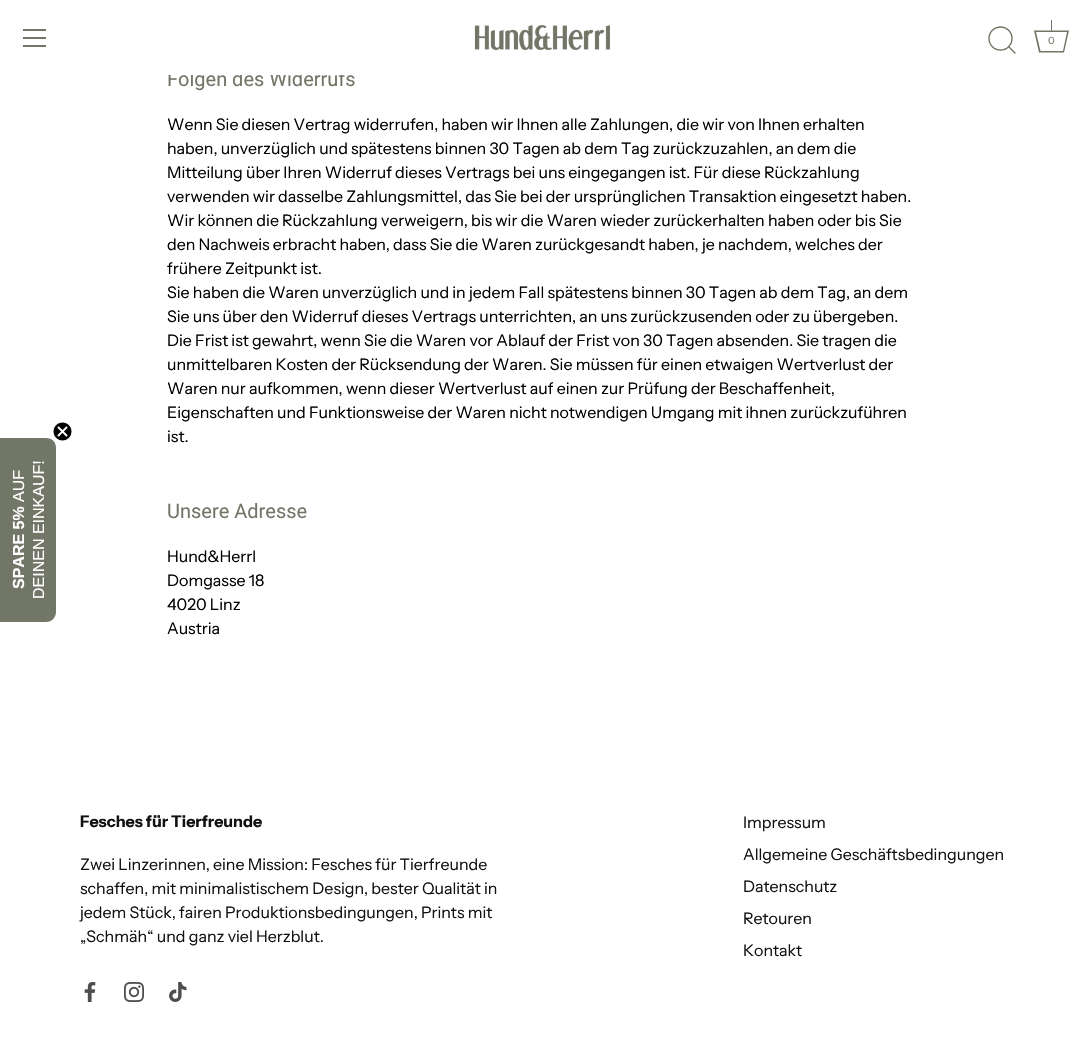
static SkFont makeFont(const char* family, int weight, float size, bool italic = false) {
  SkFontStyle style(weight, SkFontStyle::kNormal_Width,
    italic ? SkFontStyle::kItalic_Slant : SkFontStyle::kUpright_Slant);
  SkFont result(fontMgr->matchFamilyStyle(family, style), size);
  result.setSubpixel(true);
  return result;
}

static void text(SkCanvas* c, const char* s, float x, float y, const SkFont& font, SkColor color) {
  SkPaint ink(SkColor4f::FromColor(color));
  ink.setAntiAlias(true);
  c->drawString(s, x, y, font, ink);
}

static void box(SkCanvas* c, float l, float t, float r, float b, SkColor color) {
  SkPaint ink(SkColor4f::FromColor(color));
  ink.setAntiAlias(true);
  c->drawRect(SkRect::MakeLTRB(l, t, r, b), ink);
}

static void picture(SkCanvas* c, const char* path, float l, float t, float r, float b) {
  auto image = SkImages::DeferredFromEncodedData(SkData::MakeFromFileName(path));
  c->drawImageRect(image, SkRect::MakeLTRB(l, t, r, b), SkSamplingOptions());
}

void draw(SkCanvas* c) {
  SkPaint paint;
  paint.setAntiAlias(true);
  c->clear(0xffffffff);
  SkFont face1 = makeFont("Roboto", 400, 20);
  text(c, "Folgen des Widerrufs", 167, 86, face1, 0xff717666);
  box(c, 168, 70, 346, 75, 0xffffffff);
  box(c, 23, 29, 46, 31, 0xff717666);
  box(c, 23, 37, 46, 39, 0xff717666);
  box(c, 23, 45, 46, 47, 0xff717666);
  picture(c, "img_01.png", 474, 25, 610, 50);
  paint.setStyle(SkPaint::kStroke_Style);
  paint.setStrokeWidth(1.4f);
  paint.setColor(0xff717666);
  c->drawCircle(1000.5f, 38.5f, 11.5f, paint);
  paint.setStrokeCap(SkPaint::kRound_Cap);
  paint.setStrokeJoin(SkPaint::kRound_Join);
  c->drawPath(SkPathBuilder().moveTo(1015, 53).lineTo(1009, 47).detach(), paint);
  paint.setStyle(SkPaint::kFill_Style);
  c->drawPath(SkPathBuilder().moveTo(1067, 32).lineTo(1063, 51).lineTo(1040.5f, 51).lineTo(1036, 32).lineTo(1067, 32).moveTo(1069, 30.5f).lineTo(1034, 30.5f).lineTo(1039, 52.5f).lineTo(1064, 52.5f).close().detach(), paint);
  box(c, 1051, 20, 1052, 31, 0xff717666);
  SkFont face2 = makeFont("Instrument Sans", 400, 10);
  text(c, "0", 1048, 44, face2, 0xff717666);
  c->drawPath(SkPathBuilder().moveTo(0, 622).lineTo(0, 438).lineTo(46, 438).cubicTo(52, 438, 56, 442, 56, 448).lineTo(56, 612).cubicTo(56, 617, 52, 622, 46, 622).close().detach(), paint);
  picture(c, "img_02.png", 53, 422, 72, 441);
  SkFont face3 = makeFont("Liberation Sans", 400, 16);
  c->save();
  c->rotate(-90, 24, 502);
  text(c, "AUF", 24, 502, face3, 0xffffffff);
  c->restore();
  c->save();
  c->rotate(-90, 44, 599);
  text(c, "DEINEN EINKAUF!", 44, 599, face3, 0xffffffff);
  c->restore();
  SkFont face4 = makeFont("Liberation Sans", 700, 16);
  c->save();
  c->rotate(-90, 24, 589);
  text(c, "SPARE 5%", 24, 589, face4, 0xffffffff);
  c->restore();
  SkFont face5 = makeFont("Instrument Sans", 400, 16);
  text(c, "Wenn Sie diesen Vertrag widerrufen, haben wir Ihnen alle Zahlungen, die wir von Ihnen erhalten", 167, 130, face5, 0xff000000);
  text(c, "haben, unverzüglich und spätestens binnen 30 Tagen ab dem Tag zurückzuzahlen, an dem die", 167, 154, face5, 0xff000000);
  text(c, "Mitteilung über Ihren Widerruf dieses Vertrags bei uns eingegangen ist. Für diese Rückzahlung", 167, 178, face5, 0xff000000);
  text(c, "verwenden wir dasselbe Zahlungsmittel, das Sie bei der ursprünglichen Transaktion eingesetzt haben.", 167, 202, face5, 0xff000000);
  text(c, "Wir können die Rückzahlung verweigern, bis wir die Waren wieder zurückerhalten haben oder bis Sie", 167, 226, face5, 0xff000000);
  text(c, "den Nachweis erbracht haben, dass Sie die Waren zurückgesandt haben, je nachdem, welches der", 167, 250, face5, 0xff000000);
  text(c, "frühere Zeitpunkt ist.", 167, 274, face5, 0xff000000);
  text(c, "Sie haben die Waren unverzüglich und in jedem Fall spätestens binnen 30 Tagen ab dem Tag, an dem", 167, 298, face5, 0xff000000);
  text(c, "Sie uns über den Widerruf dieses Vertrags unterrichten, an uns zurückzusenden oder zu übergeben.", 167, 322, face5, 0xff000000);
  text(c, "Die Frist ist gewahrt, wenn Sie die Waren vor Ablauf der Frist von 30 Tagen absenden. Sie tragen die", 167, 346, face5, 0xff000000);
  text(c, "unmittelbaren Kosten der Rücksendung der Waren. Sie müssen für einen etwaigen Wertverlust der", 167, 370, face5, 0xff000000);
  text(c, "Waren nur aufkommen, wenn dieser Wertverlust auf einen zur Prüfung der Beschaffenheit,", 167, 394, face5, 0xff000000);
  text(c, "Eigenschaften und Funktionsweise der Waren nicht notwendigen Umgang mit ihnen zurückzuführen", 167, 418, face5, 0xff000000);
  text(c, "ist.", 167, 442, face5, 0xff000000);
  text(c, "Unsere Adresse", 167, 518, face1, 0xff717666);
  text(c, "Hund&Herrl", 167, 562, face5, 0xff000000);
  text(c, "Domgasse 18", 167, 586, face5, 0xff000000);
  text(c, "4020 Linz", 167, 610, face5, 0xff000000);
  text(c, "Austria", 167, 634, face5, 0xff000000);
  SkFont face6 = makeFont("Instrument Sans", 700, 16);
  text(c, "Fesches für Tierfreunde", 80, 827, face6, 0xff111111);
  text(c, "Zwei Linzerinnen, eine Mission: Fesches für Tierfreunde", 80, 870, face5, 0xff111111);
  text(c, "schaffen, mit minimalistischem Design, bester Qualität in", 80, 894, face5, 0xff111111);
  text(c, "jedem Stück, fairen Produktionsbedingungen, Prints mit", 80, 918, face5, 0xff111111);
  text(c, "„Schmäh“ und ganz viel Herzblut.", 80, 942, face5, 0xff111111);
  picture(c, "img_03.png", 84, 982, 96, 1002);
  picture(c, "img_04.png", 124, 982, 144, 1002);
  picture(c, "img_05.png", 169, 982, 187, 1002);
  text(c, "Impressum", 743, 828, face5, 0xff111111);
  text(c, "Allgemeine Geschäftsbedingungen", 743, 860, face5, 0xff111111);
  text(c, "Datenschutz", 743, 892, face5, 0xff111111);
  text(c, "Retouren", 743, 924, face5, 0xff111111);
  text(c, "Kontakt", 743, 956, face5, 0xff111111);
}
